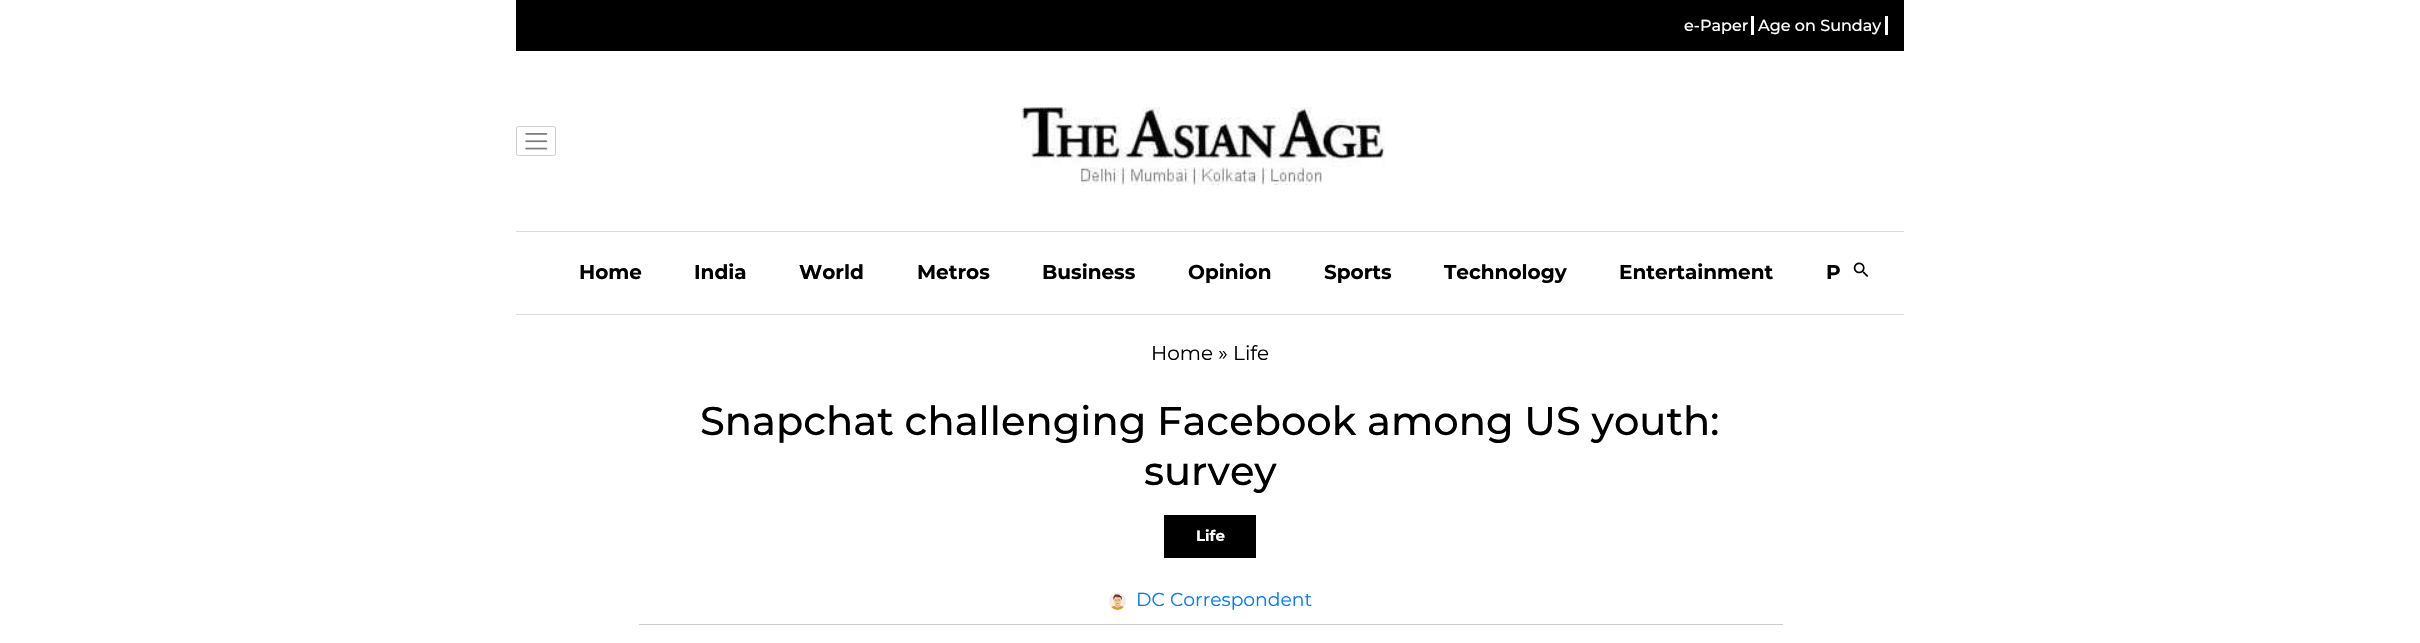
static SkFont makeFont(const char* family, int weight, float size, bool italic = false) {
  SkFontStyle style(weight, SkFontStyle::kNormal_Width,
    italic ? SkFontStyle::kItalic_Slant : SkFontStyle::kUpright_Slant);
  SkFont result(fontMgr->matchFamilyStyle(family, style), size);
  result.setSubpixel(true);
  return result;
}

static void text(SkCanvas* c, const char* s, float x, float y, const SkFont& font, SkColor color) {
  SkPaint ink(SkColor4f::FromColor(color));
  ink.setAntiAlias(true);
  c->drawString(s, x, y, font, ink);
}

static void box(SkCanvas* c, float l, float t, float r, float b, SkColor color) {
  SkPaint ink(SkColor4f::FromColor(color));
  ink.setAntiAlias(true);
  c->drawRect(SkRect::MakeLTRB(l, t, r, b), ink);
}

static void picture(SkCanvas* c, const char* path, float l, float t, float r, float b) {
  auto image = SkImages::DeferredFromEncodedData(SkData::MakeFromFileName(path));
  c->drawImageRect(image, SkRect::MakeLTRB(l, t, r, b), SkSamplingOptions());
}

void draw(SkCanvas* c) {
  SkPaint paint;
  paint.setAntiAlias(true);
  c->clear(0xffffffff);
  box(c, 516, 0, 1904, 51, 0xff000000);
  SkFont face1 = makeFont("Montserrat", 500, 16);
  text(c, "e-Paper", 1684, 31, face1, 0xffffffff);
  box(c, 1751, 16, 1754, 35, 0xffffffff);
  text(c, "Age on Sunday", 1758, 31, face1, 0xffffffff);
  box(c, 1885, 16, 1888, 35, 0xffffffff);
  box(c, 516, 231, 1904, 232, 0xffdbdbdb);
  picture(c, "img_01.png", 525, 133, 548, 150);
  paint.setStyle(SkPaint::kStroke_Style);
  paint.setStrokeWidth(1);
  paint.setColor(0xffcccccc);
  c->drawRoundRect(SkRect::MakeLTRB(516.5f, 126.5f, 555.5f, 155.5f), 2, 2, paint);
  picture(c, "img_02.png", 1021, 107, 1385, 185);
  box(c, 516, 314, 1904, 315, 0xffdbdbdb);
  SkFont face2 = makeFont("Montserrat", 700, 20);
  text(c, "Home", 579, 279, face2, 0xff000000);
  text(c, "India", 694, 279, face2, 0xff000000);
  text(c, "World", 799, 279, face2, 0xff000000);
  text(c, "Metros", 917, 279, face2, 0xff000000);
  text(c, "Business", 1042, 279, face2, 0xff000000);
  text(c, "Opinion", 1188, 279, face2, 0xff000000);
  text(c, "Sports", 1324, 279, face2, 0xff000000);
  text(c, "Technology", 1444, 279, face2, 0xff000000);
  text(c, "Entertainment", 1619, 279, face2, 0xff000000);
  text(c, "P", 1826, 279, face2, 0xff000000);
  picture(c, "img_03.png", 1853, 262, 1869, 277);
  SkFont face3 = makeFont("Montserrat", 400, 20);
  text(c, "Home » Life", 1151, 360, face3, 0xff000000);
  SkFont face4 = makeFont("Montserrat", 500, 40);
  text(c, "Snapchat challenging Facebook among US youth:", 700, 435, face4, 0xff000000);
  text(c, "survey", 1144, 485, face4, 0xff000000);
  box(c, 1164, 515, 1256, 558, 0xff000000);
  SkFont face5 = makeFont("Montserrat", 700, 15);
  text(c, "Life", 1196, 541, face5, 0xffffffff);
  picture(c, "img_04.png", 1109, 592, 1126, 610);
  SkFont face6 = makeFont("Montserrat", 400, 18.75f);
  text(c, "DC Correspondent", 1136, 606, face6, 0xff007bff);
  box(c, 639, 624, 1783, 625, 0xffcccccc);
}
